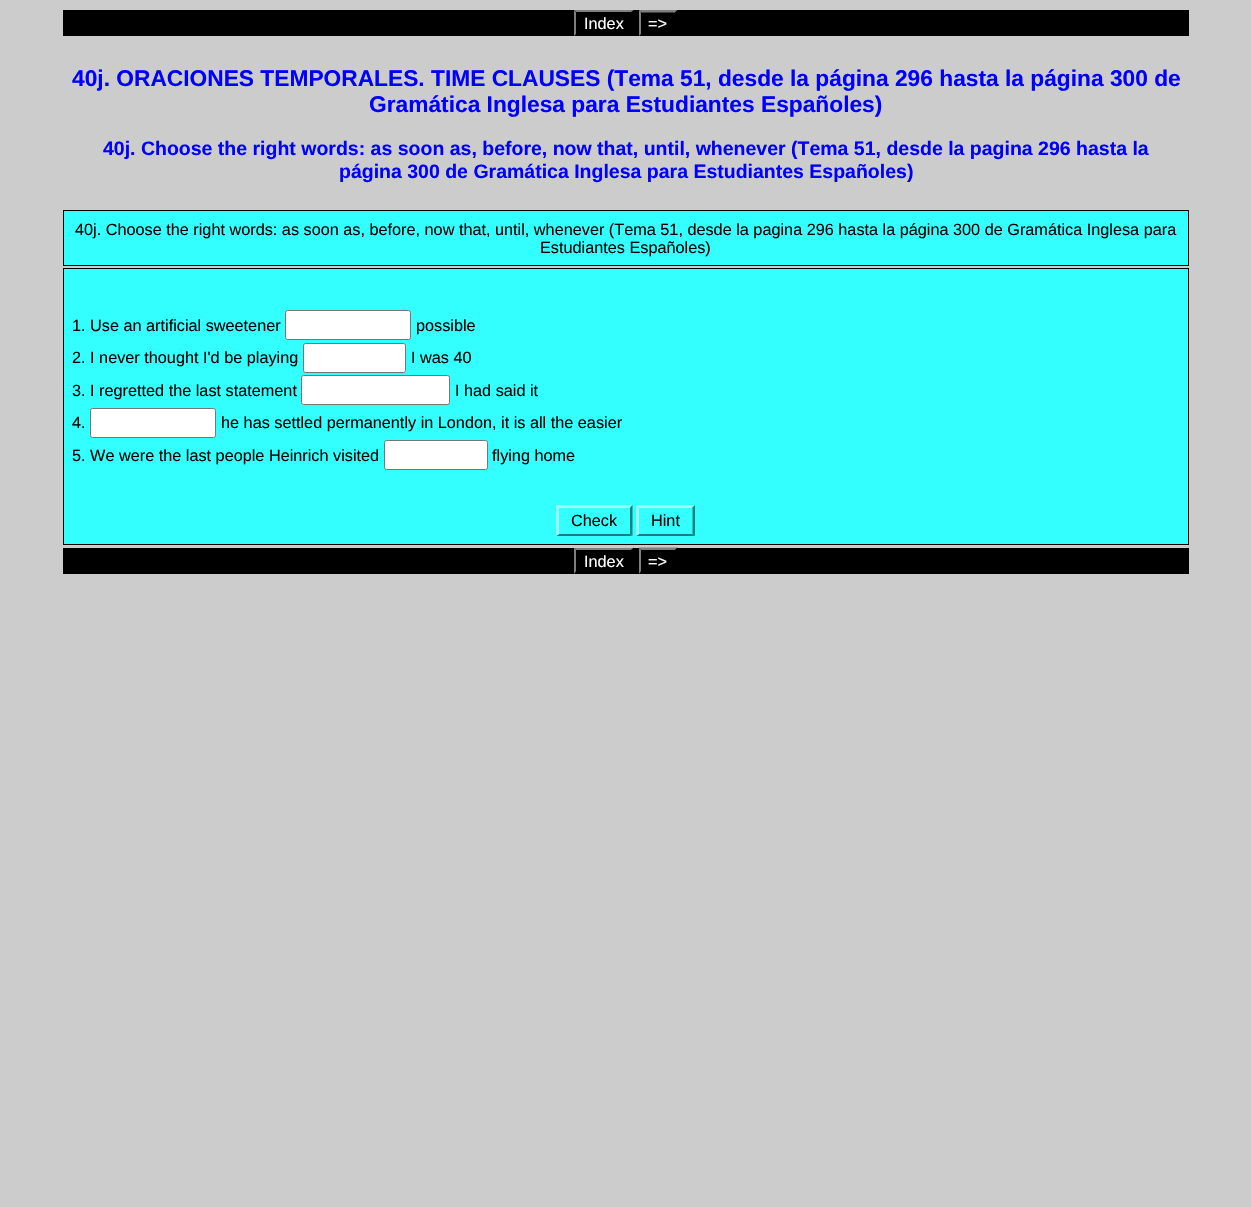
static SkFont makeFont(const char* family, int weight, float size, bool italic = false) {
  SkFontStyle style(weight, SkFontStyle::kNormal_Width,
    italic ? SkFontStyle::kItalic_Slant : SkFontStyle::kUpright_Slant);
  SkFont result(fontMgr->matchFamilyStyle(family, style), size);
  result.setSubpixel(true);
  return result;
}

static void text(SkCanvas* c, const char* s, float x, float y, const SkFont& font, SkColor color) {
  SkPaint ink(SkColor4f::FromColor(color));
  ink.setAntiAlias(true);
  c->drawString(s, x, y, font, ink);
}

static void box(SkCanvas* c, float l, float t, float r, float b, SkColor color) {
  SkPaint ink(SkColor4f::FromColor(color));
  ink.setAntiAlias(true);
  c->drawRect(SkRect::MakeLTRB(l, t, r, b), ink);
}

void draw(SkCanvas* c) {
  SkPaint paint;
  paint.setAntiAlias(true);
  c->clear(0xffcccccc);
  box(c, 63, 10, 1189, 36, 0xff000000);
  paint.setColor(0xff7f7f7f);
  c->drawPath(SkPathBuilder().moveTo(574, 10).lineTo(634, 10).lineTo(631, 12).lineTo(576, 12).close().detach(), paint);
  paint.setColor(0xff000000);
  c->drawPath(SkPathBuilder().moveTo(634, 10).lineTo(634, 36).lineTo(631, 34).lineTo(631, 12.5f).close().detach(), paint);
  paint.setColor(0xff7f7f7f);
  c->drawPath(SkPathBuilder().moveTo(574, 36).lineTo(574, 10).lineTo(576, 12.5f).lineTo(576, 34).close().detach(), paint);
  SkFont face1 = makeFont("Liberation Sans", 400, 16.25f);
  text(c, "Index", 584, 29, face1, 0xffffffff);
  c->drawPath(SkPathBuilder().moveTo(639, 10).lineTo(677.5f, 10).lineTo(675, 12.5f).lineTo(641, 12.5f).close().detach(), paint);
  paint.setColor(0xff000000);
  c->drawPath(SkPathBuilder().moveTo(677.5f, 10).lineTo(677.5f, 36).lineTo(675, 34).lineTo(675, 12.5f).close().detach(), paint);
  paint.setColor(0xff7f7f7f);
  c->drawPath(SkPathBuilder().moveTo(639, 36).lineTo(639, 10).lineTo(641, 12.5f).lineTo(641, 34).close().detach(), paint);
  text(c, "=>", 648, 29, face1, 0xffffffff);
  SkFont face2 = makeFont("Liberation Sans", 700, 22.75f);
  text(c, "40j. ORACIONES TEMPORALES. TIME CLAUSES (Tema 51, desde la página 296 hasta la página 300 de", 72, 86, face2, 0xff0000ff);
  text(c, "Gramática Inglesa para Estudiantes Españoles)", 369, 112, face2, 0xff0000ff);
  SkFont face3 = makeFont("Liberation Sans", 700, 19.5f);
  text(c, "40j. Choose the right words: as soon as, before, now that, until, whenever (Tema 51, desde la pagina 296 hasta la", 103, 155, face3, 0xff0000ff);
  text(c, "página 300 de Gramática Inglesa para Estudiantes Españoles)", 339, 178, face3, 0xff0000ff);
  paint.setColor(0xff33ffff);
  c->drawRect(SkRect::MakeLTRB(63.5f, 210.5f, 1188.5f, 265.5f), paint);
  paint.setStyle(SkPaint::kStroke_Style);
  paint.setStrokeWidth(1);
  paint.setColor(0xff000000);
  c->drawRect(SkRect::MakeLTRB(63.5f, 210.5f, 1188.5f, 265.5f), paint);
  text(c, "40j. Choose the right words: as soon as, before, now that, until, whenever (Tema 51, desde la pagina 296 hasta la página 300 de Gramática Inglesa para", 75, 235, face1, 0xff000000);
  text(c, "Estudiantes Españoles)", 540, 253, face1, 0xff000000);
  paint.setStyle(SkPaint::kFill_Style);
  paint.setColor(0xff33ffff);
  c->drawRect(SkRect::MakeLTRB(63.5f, 268.5f, 1188.5f, 544.5f), paint);
  paint.setStyle(SkPaint::kStroke_Style);
  paint.setColor(0xff000000);
  c->drawRect(SkRect::MakeLTRB(63.5f, 268.5f, 1188.5f, 544.5f), paint);
  text(c, "1. Use an artificial sweetener", 72, 331, face1, 0xff000000);
  paint.setStyle(SkPaint::kFill_Style);
  paint.setColor(0xffffffff);
  c->drawRoundRect(SkRect::MakeLTRB(285.5f, 310.5f, 410.5f, 339.5f), 2, 2, paint);
  paint.setStyle(SkPaint::kStroke_Style);
  paint.setColor(0xff767676);
  c->drawRoundRect(SkRect::MakeLTRB(285.5f, 310.5f, 410.5f, 339.5f), 2, 2, paint);
  text(c, "possible", 416, 331, face1, 0xff000000);
  text(c, "2. I never thought I'd be playing", 72, 363, face1, 0xff000000);
  paint.setStyle(SkPaint::kFill_Style);
  paint.setColor(0xffffffff);
  c->drawRoundRect(SkRect::MakeLTRB(303.5f, 343.5f, 405.5f, 372.5f), 2, 2, paint);
  paint.setStyle(SkPaint::kStroke_Style);
  paint.setColor(0xff767676);
  c->drawRoundRect(SkRect::MakeLTRB(303.5f, 343.5f, 405.5f, 372.5f), 2, 2, paint);
  text(c, "I was 40", 411, 363, face1, 0xff000000);
  text(c, "3. I regretted the last statement", 72, 396, face1, 0xff000000);
  paint.setStyle(SkPaint::kFill_Style);
  paint.setColor(0xffffffff);
  c->drawRoundRect(SkRect::MakeLTRB(301.5f, 375.5f, 449.5f, 404.5f), 2, 2, paint);
  paint.setStyle(SkPaint::kStroke_Style);
  paint.setColor(0xff767676);
  c->drawRoundRect(SkRect::MakeLTRB(301.5f, 375.5f, 449.5f, 404.5f), 2, 2, paint);
  text(c, "I had said it", 455, 396, face1, 0xff000000);
  text(c, "4.", 72, 428, face1, 0xff000000);
  paint.setStyle(SkPaint::kFill_Style);
  paint.setColor(0xffffffff);
  c->drawRoundRect(SkRect::MakeLTRB(90.5f, 408.5f, 215.5f, 437.5f), 2, 2, paint);
  paint.setStyle(SkPaint::kStroke_Style);
  paint.setColor(0xff767676);
  c->drawRoundRect(SkRect::MakeLTRB(90.5f, 408.5f, 215.5f, 437.5f), 2, 2, paint);
  text(c, "he has settled permanently in London, it is all the easier", 221, 428, face1, 0xff000000);
  text(c, "5. We were the last people Heinrich visited", 72, 461, face1, 0xff000000);
  paint.setStyle(SkPaint::kFill_Style);
  paint.setColor(0xffffffff);
  c->drawRoundRect(SkRect::MakeLTRB(384.5f, 440.5f, 487.5f, 469.5f), 2, 2, paint);
  paint.setStyle(SkPaint::kStroke_Style);
  paint.setColor(0xff767676);
  c->drawRoundRect(SkRect::MakeLTRB(384.5f, 440.5f, 487.5f, 469.5f), 2, 2, paint);
  text(c, "flying home", 492, 461, face1, 0xff000000);
  paint.setStyle(SkPaint::kFill_Style);
  paint.setColor(0xff99ffff);
  c->drawPath(SkPathBuilder().moveTo(556, 505).lineTo(632, 505).lineTo(630, 508).lineTo(559, 508).close().detach(), paint);
  paint.setColor(0xff197f7f);
  c->drawPath(SkPathBuilder().moveTo(632.5f, 505).lineTo(632.5f, 536).lineTo(630, 534).lineTo(630, 507.5f).close().detach(), paint);
  c->drawPath(SkPathBuilder().moveTo(632, 536).lineTo(556, 536).lineTo(559, 534).lineTo(630, 534).close().detach(), paint);
  paint.setColor(0xff99ffff);
  c->drawPath(SkPathBuilder().moveTo(556, 536).lineTo(556, 505).lineTo(559, 507.5f).lineTo(559, 534).close().detach(), paint);
  text(c, "Check", 571, 526, face1, 0xff000000);
  c->drawPath(SkPathBuilder().moveTo(636, 505).lineTo(695, 505).lineTo(692, 508).lineTo(639, 508).close().detach(), paint);
  paint.setColor(0xff197f7f);
  c->drawPath(SkPathBuilder().moveTo(695, 505).lineTo(695, 536).lineTo(692.5f, 534).lineTo(692.5f, 507.5f).close().detach(), paint);
  c->drawPath(SkPathBuilder().moveTo(695, 536).lineTo(636, 536).lineTo(639, 534).lineTo(692, 534).close().detach(), paint);
  paint.setColor(0xff99ffff);
  c->drawPath(SkPathBuilder().moveTo(636, 536).lineTo(636, 505).lineTo(639, 507.5f).lineTo(639, 534).close().detach(), paint);
  text(c, "Hint", 651, 526, face1, 0xff000000);
  box(c, 63, 548, 1189, 574, 0xff000000);
  paint.setColor(0xff7f7f7f);
  c->drawPath(SkPathBuilder().moveTo(574, 548).lineTo(634, 548).lineTo(631, 550).lineTo(576, 550).close().detach(), paint);
  paint.setColor(0xff000000);
  c->drawPath(SkPathBuilder().moveTo(634, 547.5f).lineTo(634, 574).lineTo(631, 571).lineTo(631, 550).close().detach(), paint);
  paint.setColor(0xff7f7f7f);
  c->drawPath(SkPathBuilder().moveTo(574, 574).lineTo(574, 547.5f).lineTo(576, 550).lineTo(576, 571).close().detach(), paint);
  text(c, "Index", 584, 567, face1, 0xffffffff);
  c->drawPath(SkPathBuilder().moveTo(639, 547.5f).lineTo(677.5f, 547.5f).lineTo(675, 550).lineTo(641, 550).close().detach(), paint);
  paint.setColor(0xff000000);
  c->drawPath(SkPathBuilder().moveTo(677.5f, 547.5f).lineTo(677.5f, 574).lineTo(675, 571).lineTo(675, 550).close().detach(), paint);
  paint.setColor(0xff7f7f7f);
  c->drawPath(SkPathBuilder().moveTo(639, 574).lineTo(639, 547.5f).lineTo(641, 550).lineTo(641, 571).close().detach(), paint);
  text(c, "=>", 648, 567, face1, 0xffffffff);
}
